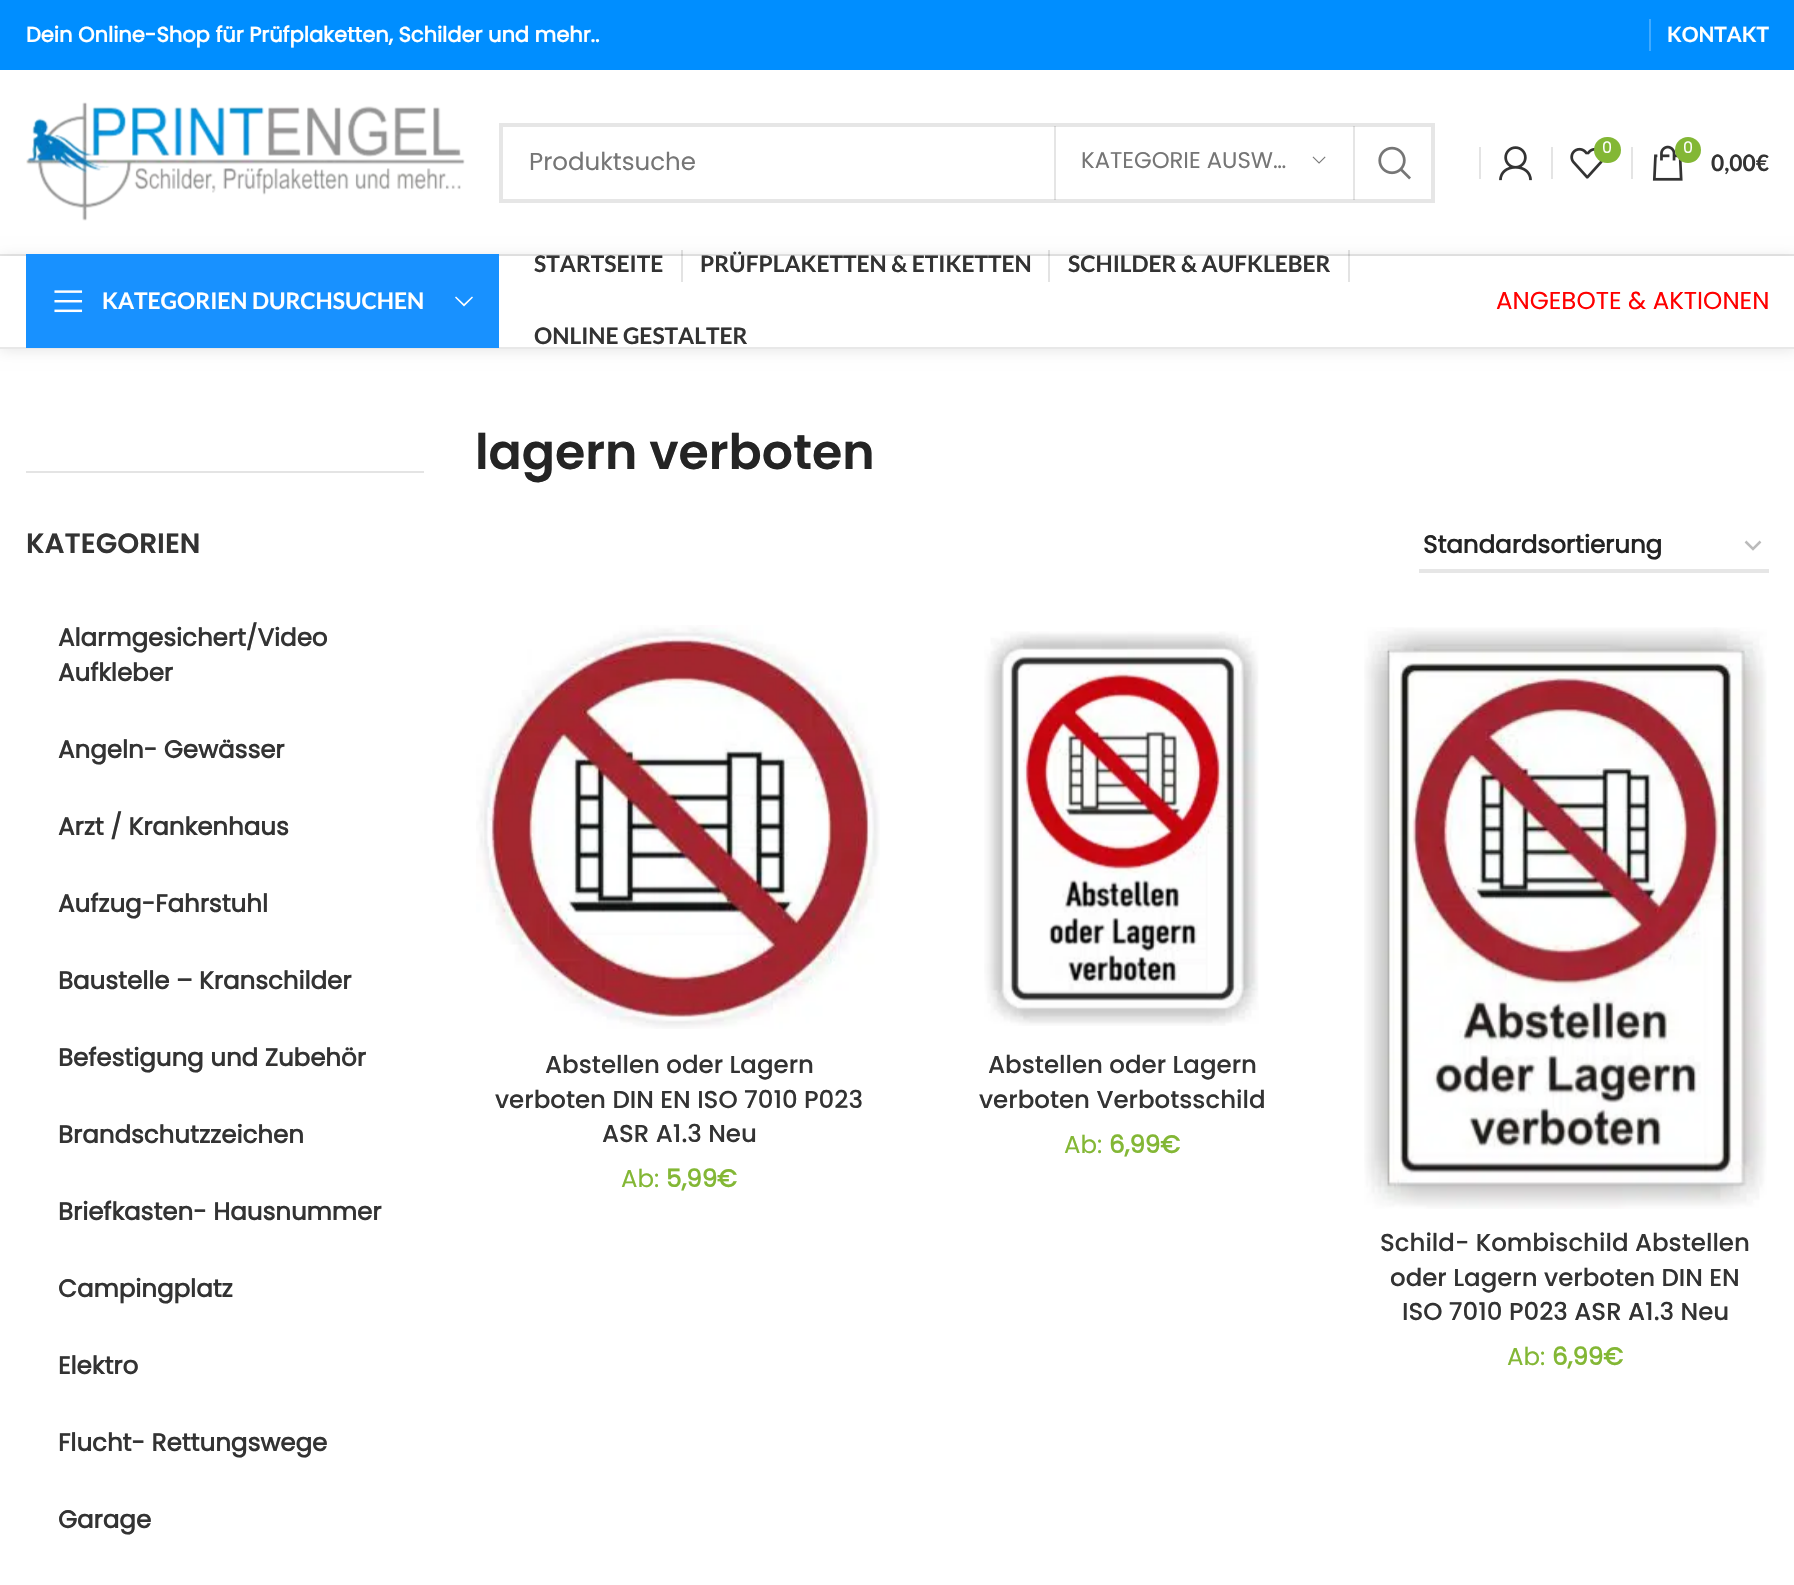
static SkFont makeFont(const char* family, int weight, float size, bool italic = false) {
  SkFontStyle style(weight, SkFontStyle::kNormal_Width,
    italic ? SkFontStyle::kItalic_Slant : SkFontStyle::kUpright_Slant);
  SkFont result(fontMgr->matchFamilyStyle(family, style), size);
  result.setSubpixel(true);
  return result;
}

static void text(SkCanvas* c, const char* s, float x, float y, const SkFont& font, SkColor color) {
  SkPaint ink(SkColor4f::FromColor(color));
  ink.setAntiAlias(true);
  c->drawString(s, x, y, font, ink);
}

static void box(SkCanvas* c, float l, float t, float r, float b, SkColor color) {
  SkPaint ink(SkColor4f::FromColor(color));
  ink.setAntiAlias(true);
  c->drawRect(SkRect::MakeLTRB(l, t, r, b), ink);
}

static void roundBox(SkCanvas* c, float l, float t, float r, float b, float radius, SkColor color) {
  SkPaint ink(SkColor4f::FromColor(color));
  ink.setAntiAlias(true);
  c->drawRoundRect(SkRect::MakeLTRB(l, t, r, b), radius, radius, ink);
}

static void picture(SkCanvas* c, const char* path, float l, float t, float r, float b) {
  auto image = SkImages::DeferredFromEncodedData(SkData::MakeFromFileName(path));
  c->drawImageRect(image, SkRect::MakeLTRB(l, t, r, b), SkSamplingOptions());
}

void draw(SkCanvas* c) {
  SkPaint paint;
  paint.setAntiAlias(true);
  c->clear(0xffffffff);
  box(c, 0, 0, 1794, 70, 0xff008eff);
  SkFont face1 = makeFont("Poppins", 700, 21);
  text(c, "Dein Online-Shop für Prüfplaketten, Schilder und mehr..", 26, 42, face1, 0xffffffff);
  box(c, 1649, 19, 1651, 51, 0xff40aaff);
  SkFont face2 = makeFont("Lato", 700, 21);
  text(c, "KONTAKT", 1667, 42, face2, 0xffffffff);
  box(c, 0, 254, 1794, 256, 0xffe8e8e8);
  picture(c, "img_01.png", 26, 102, 465, 221);
  paint.setStyle(SkPaint::kStroke_Style);
  paint.setStrokeWidth(4);
  paint.setColor(0xffe6e6e6);
  c->drawRect(SkRect::MakeLTRB(501, 125, 1433, 201), paint);
  SkFont face3 = makeFont("Poppins", 400, 24.5f);
  text(c, "Produktsuche", 529, 170, face3, 0xff767676);
  box(c, 1353, 126, 1355, 200, 0x1a000000);
  box(c, 1054, 126, 1056, 200, 0x1a000000);
  SkFont face4 = makeFont("Poppins", 400, 22.75f);
  text(c, "KATEGORIE AUSW…", 1081, 168, face4, 0xff767676);
  picture(c, "img_02.png", 1312, 156, 1326, 164);
  picture(c, "img_03.png", 1378, 146, 1411, 180);
  box(c, 1479, 147, 1481, 179, 0xffe4e4e4);
  picture(c, "img_04.png", 1499, 146, 1532, 181);
  box(c, 1551, 147, 1553, 179, 0xffe4e4e4);
  picture(c, "img_05.png", 1570, 147, 1603, 179);
  roundBox(c, 1594, 137, 1621, 163, 13, 0xff83b735);
  SkFont face5 = makeFont("Poppins", 400, 16);
  text(c, "0", 1602, 153, face5, 0xffffffff);
  box(c, 1631, 147, 1633, 179, 0xffe4e4e4);
  picture(c, "img_06.png", 1652, 145, 1683, 181);
  paint.setStyle(SkPaint::kFill_Style);
  paint.setColor(0xff83b735);
  c->drawCircle(1688, 150, 13, paint);
  text(c, "0", 1683, 153, face5, 0xffffffff);
  SkFont face6 = makeFont("Lato", 700, 22.75f);
  text(c, "0,00€", 1711, 171, face6, 0xff333333);
  c->save();
  c->clipPath(SkPathBuilder(SkPathFillType::kEvenOdd).moveTo(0, 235).lineTo(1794, 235).lineTo(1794, 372).lineTo(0, 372).close().moveTo(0, 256).lineTo(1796, 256).lineTo(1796, 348).lineTo(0, 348).close().detach(), true);
  paint.setColor(0x1a000000);
  paint.setMaskFilter(SkMaskFilter::MakeBlur(kNormal_SkBlurStyle, 7));
  c->drawRect(SkRect::MakeLTRB(0, 257, 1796, 350), paint);
  paint.setMaskFilter(nullptr);
  c->restore();
  box(c, 0, 347, 1794, 349, 0xffe8e8e8);
  box(c, 26, 254, 499, 348, 0xff1891ff);
  picture(c, "img_07.png", 54, 290, 83, 313);
  text(c, "KATEGORIEN DURCHSUCHEN", 102, 309, face6, 0xffffffff);
  paint.setColor(0xffffffff);
  c->drawPath(SkPathBuilder().moveTo(472, 296.5f).lineTo(464, 304).lineTo(456, 296.5f).lineTo(455, 297.5f).lineTo(464, 306.5f).lineTo(473, 297.5f).close().detach(), paint);
  text(c, "STARTSEITE", 534, 272, face6, 0xff333333);
  box(c, 681, 250, 683, 282, 0x1c000000);
  text(c, "PRÜFPLAKETTEN & ETIKETTEN", 700, 272, face6, 0xff333333);
  box(c, 1048, 250, 1050, 282, 0x1c000000);
  text(c, "SCHILDER & AUFKLEBER", 1068, 272, face6, 0xff333333);
  box(c, 1348, 250, 1350, 282, 0x1c000000);
  text(c, "ONLINE GESTALTER", 534, 344, face6, 0xff333333);
  text(c, "ANGEBOTE & AKTIONEN", 1496, 309, face3, 0xffff0000);
  box(c, 26, 471, 424, 473, 0xffe4e4e4);
  SkFont face7 = makeFont("Poppins", 600, 28);
  text(c, "KATEGORIEN", 26, 553, face7, 0xff333333);
  SkFont face8 = makeFont("Poppins", 700, 24.5f);
  text(c, "Alarmgesichert/Video", 58, 646, face8, 0xff333333);
  text(c, "Aufkleber", 58, 681, face8, 0xff333333);
  text(c, "Angeln- Gewässer", 58, 758, face8, 0xff333333);
  text(c, "Arzt / Krankenhaus", 58, 835, face8, 0xff333333);
  text(c, "Aufzug-Fahrstuhl", 58, 912, face8, 0xff333333);
  text(c, "Baustelle – Kranschilder", 58, 989, face8, 0xff333333);
  text(c, "Befestigung und Zubehör", 58, 1066, face8, 0xff333333);
  text(c, "Brandschutzzeichen", 58, 1143, face8, 0xff333333);
  text(c, "Briefkasten- Hausnummer", 58, 1220, face8, 0xff333333);
  text(c, "Campingplatz", 58, 1297, face8, 0xff333333);
  text(c, "Elektro", 58, 1374, face8, 0xff333333);
  text(c, "Flucht- Rettungswege", 58, 1451, face8, 0xff333333);
  text(c, "Garage", 58, 1528, face8, 0xff333333);
  SkFont face9 = makeFont("Poppins", 600, 49);
  text(c, "lagern verboten", 475, 469, face9, 0xff242424);
  paint.setStyle(SkPaint::kStroke_Style);
  paint.setStrokeWidth(2.5f);
  paint.setColor(0xffbbbbbb);
  c->drawPath(SkPathBuilder().moveTo(1745.5f, 541.5f).lineTo(1753, 549).lineTo(1760.5f, 541.5f).detach(), paint);
  box(c, 1419, 569, 1769, 573, 0xffe6e6e6);
  text(c, "Standardsortierung", 1423, 553, face8, 0xff242424);
  picture(c, "img_08.png", 476, 625, 880, 1029);
  SkFont face10 = makeFont("Poppins", 500, 24.5f);
  text(c, "Abstellen oder Lagern", 545, 1073, face10, 0xff333333);
  text(c, "verboten DIN EN ISO 7010 P023", 495, 1108, face10, 0xff333333);
  text(c, "ASR A1.3 Neu", 602, 1142, face10, 0xff333333);
  text(c, "Ab:", 621, 1187, face3, 0xff83b735);
  text(c, "5,99€", 666, 1187, face8, 0xff83b735);
  picture(c, "img_09.png", 984, 631, 1259, 1026);
  text(c, "Abstellen oder Lagern", 988, 1073, face10, 0xff333333);
  text(c, "verboten Verbotsschild", 979, 1108, face10, 0xff333333);
  text(c, "Ab:", 1064, 1153, face3, 0xff83b735);
  text(c, "6,99€", 1109, 1153, face8, 0xff83b735);
  picture(c, "img_10.png", 1364, 627, 1767, 1209);
  text(c, "Schild- Kombischild Abstellen", 1380, 1251, face10, 0xff333333);
  text(c, "oder Lagern verboten DIN EN", 1390, 1286, face10, 0xff333333);
  text(c, "ISO 7010 P023 ASR A1.3 Neu", 1402, 1320, face10, 0xff333333);
  text(c, "Ab:", 1507, 1365, face3, 0xff83b735);
  text(c, "6,99€", 1552, 1365, face8, 0xff83b735);
}
